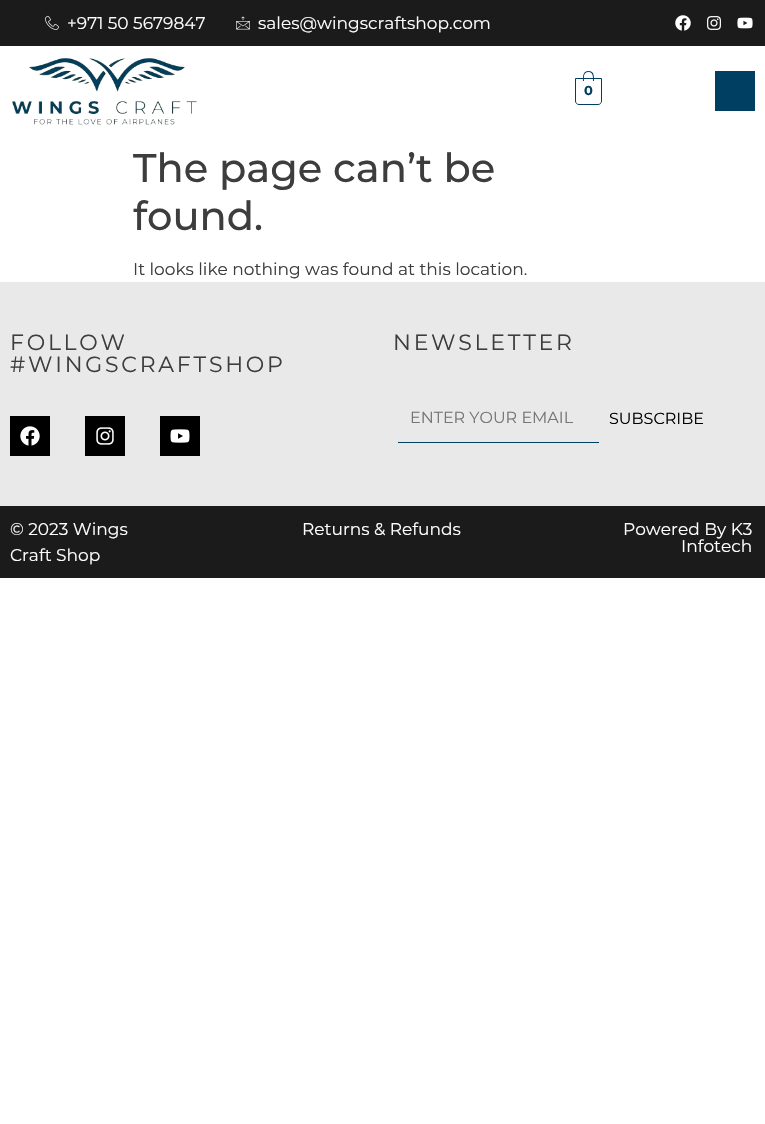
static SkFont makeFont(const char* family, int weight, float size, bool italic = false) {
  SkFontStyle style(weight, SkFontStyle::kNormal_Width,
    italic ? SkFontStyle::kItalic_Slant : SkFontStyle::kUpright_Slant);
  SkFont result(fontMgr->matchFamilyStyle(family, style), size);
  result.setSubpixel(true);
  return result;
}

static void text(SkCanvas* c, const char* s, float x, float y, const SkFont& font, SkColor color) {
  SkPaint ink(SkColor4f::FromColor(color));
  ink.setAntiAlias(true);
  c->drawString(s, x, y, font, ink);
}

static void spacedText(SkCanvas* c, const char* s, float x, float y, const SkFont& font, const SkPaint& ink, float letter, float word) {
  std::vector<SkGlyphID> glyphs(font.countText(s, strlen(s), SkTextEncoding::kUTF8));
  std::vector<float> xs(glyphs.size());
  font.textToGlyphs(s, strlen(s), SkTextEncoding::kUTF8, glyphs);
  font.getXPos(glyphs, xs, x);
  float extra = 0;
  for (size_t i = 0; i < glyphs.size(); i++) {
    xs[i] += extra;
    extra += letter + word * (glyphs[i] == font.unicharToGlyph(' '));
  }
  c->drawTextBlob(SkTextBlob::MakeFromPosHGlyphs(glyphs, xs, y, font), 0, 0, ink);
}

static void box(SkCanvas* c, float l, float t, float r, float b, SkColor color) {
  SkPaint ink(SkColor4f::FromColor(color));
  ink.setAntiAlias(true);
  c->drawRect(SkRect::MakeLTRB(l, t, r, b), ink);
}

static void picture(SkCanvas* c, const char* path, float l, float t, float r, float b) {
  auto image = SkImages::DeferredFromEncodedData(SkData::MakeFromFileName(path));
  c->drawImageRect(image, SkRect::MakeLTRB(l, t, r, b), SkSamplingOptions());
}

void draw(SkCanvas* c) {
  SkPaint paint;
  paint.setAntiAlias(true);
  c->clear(0xffffffff);
  box(c, 0, 0, 765, 46, 0xff1b1b1b);
  picture(c, "img_01.png", 45, 15, 59, 30);
  SkFont face1 = makeFont("Montserrat", 400, 17);
  text(c, "+971 50 5679847", 67, 29, face1, 0xffffffff);
  picture(c, "img_02.png", 236, 16, 250, 30);
  text(c, "sales@wingscraftshop.com", 258, 29, face1, 0xffffffff);
  picture(c, "img_03.png", 675, 15, 691, 31);
  picture(c, "img_04.png", 707, 16, 721, 30);
  picture(c, "img_05.png", 737, 17, 753, 29);
  picture(c, "img_06.png", 12, 58, 197, 125);
  paint.setStyle(SkPaint::kStroke_Style);
  paint.setStrokeWidth(1);
  paint.setColor(0xff003f62);
  c->drawPath(SkPathBuilder().moveTo(575.5f, 78.5f).lineTo(601.5f, 78.5f).lineTo(601.5f, 101).cubicTo(601.5f, 103, 600, 104.5f, 598, 104.5f).lineTo(579, 104.5f).cubicTo(577, 104.5f, 575.5f, 103, 575.5f, 101).close().detach(), paint);
  paint.setStyle(SkPaint::kFill_Style);
  c->drawPath(SkPathBuilder(SkPathFillType::kEvenOdd).moveTo(588.5f, 71).cubicTo(594.5f, 71, 594, 77, 594, 81).lineTo(583, 81).cubicTo(583, 77, 582.5f, 71, 588.5f, 71).close().moveTo(588.5f, 72).cubicTo(593.5f, 72, 593, 77.5f, 593, 81).lineTo(584, 81).cubicTo(584, 77.5f, 583, 72, 588.5f, 72).close().detach(), paint);
  SkFont face2 = makeFont("Montserrat", 700, 13);
  text(c, "0", 584, 95, face2, 0xff003f62);
  box(c, 715, 71, 755, 111, 0xff003f62);
  SkFont face3 = makeFont("Montserrat", 500, 40);
  text(c, "The page can’t be", 133, 182, face3, 0xff3d3d3d);
  text(c, "found.", 133, 230, face3, 0xff3d3d3d);
  text(c, "It looks like nothing was found at this location.", 133, 275, face1, 0xff3d3d3d);
  box(c, 0, 282, 765, 506, 0xffe9e9e9);
  SkFont face4 = makeFont("Montserrat", 400, 22);
  paint.setColor(0xff3d3d3d);
  spacedText(c, "FOLLOW", 10, 350, face4, paint, 2.75f, 0);
  spacedText(c, "#WINGSCRAFTSHOP", 10, 372, face4, paint, 2.75f, 0);
  box(c, 10, 416, 50, 456, 0xff000000);
  picture(c, "img_07.png", 20, 426, 40, 446);
  box(c, 85, 416, 125, 456, 0xff000000);
  picture(c, "img_08.png", 96, 427, 114, 445);
  box(c, 160, 416, 200, 456, 0xff000000);
  picture(c, "img_09.png", 170, 429, 190, 443);
  spacedText(c, "NEWSLETTER", 393, 350, face4, paint, 2.75f, 0);
  box(c, 398, 442, 599, 443, 0xff003f62);
  SkFont face5 = makeFont("Montserrat", 400, 16);
  text(c, "ENTER YOUR EMAIL", 410, 423, face5, 0xff757575);
  text(c, "SUBSCRIBE", 609, 424, face5, 0xff000000);
  box(c, 0, 506, 765, 578, 0xff1b1b1b);
  text(c, "© 2023 Wings", 10, 535, face1, 0xffffffff);
  text(c, "Craft Shop", 10, 561, face1, 0xffffffff);
  text(c, "Returns & Refunds", 302, 535, face1, 0xffffffff);
  text(c, "Powered By K3", 623, 535, face1, 0xffffffff);
  text(c, "Infotech", 681, 552, face1, 0xffffffff);
}
